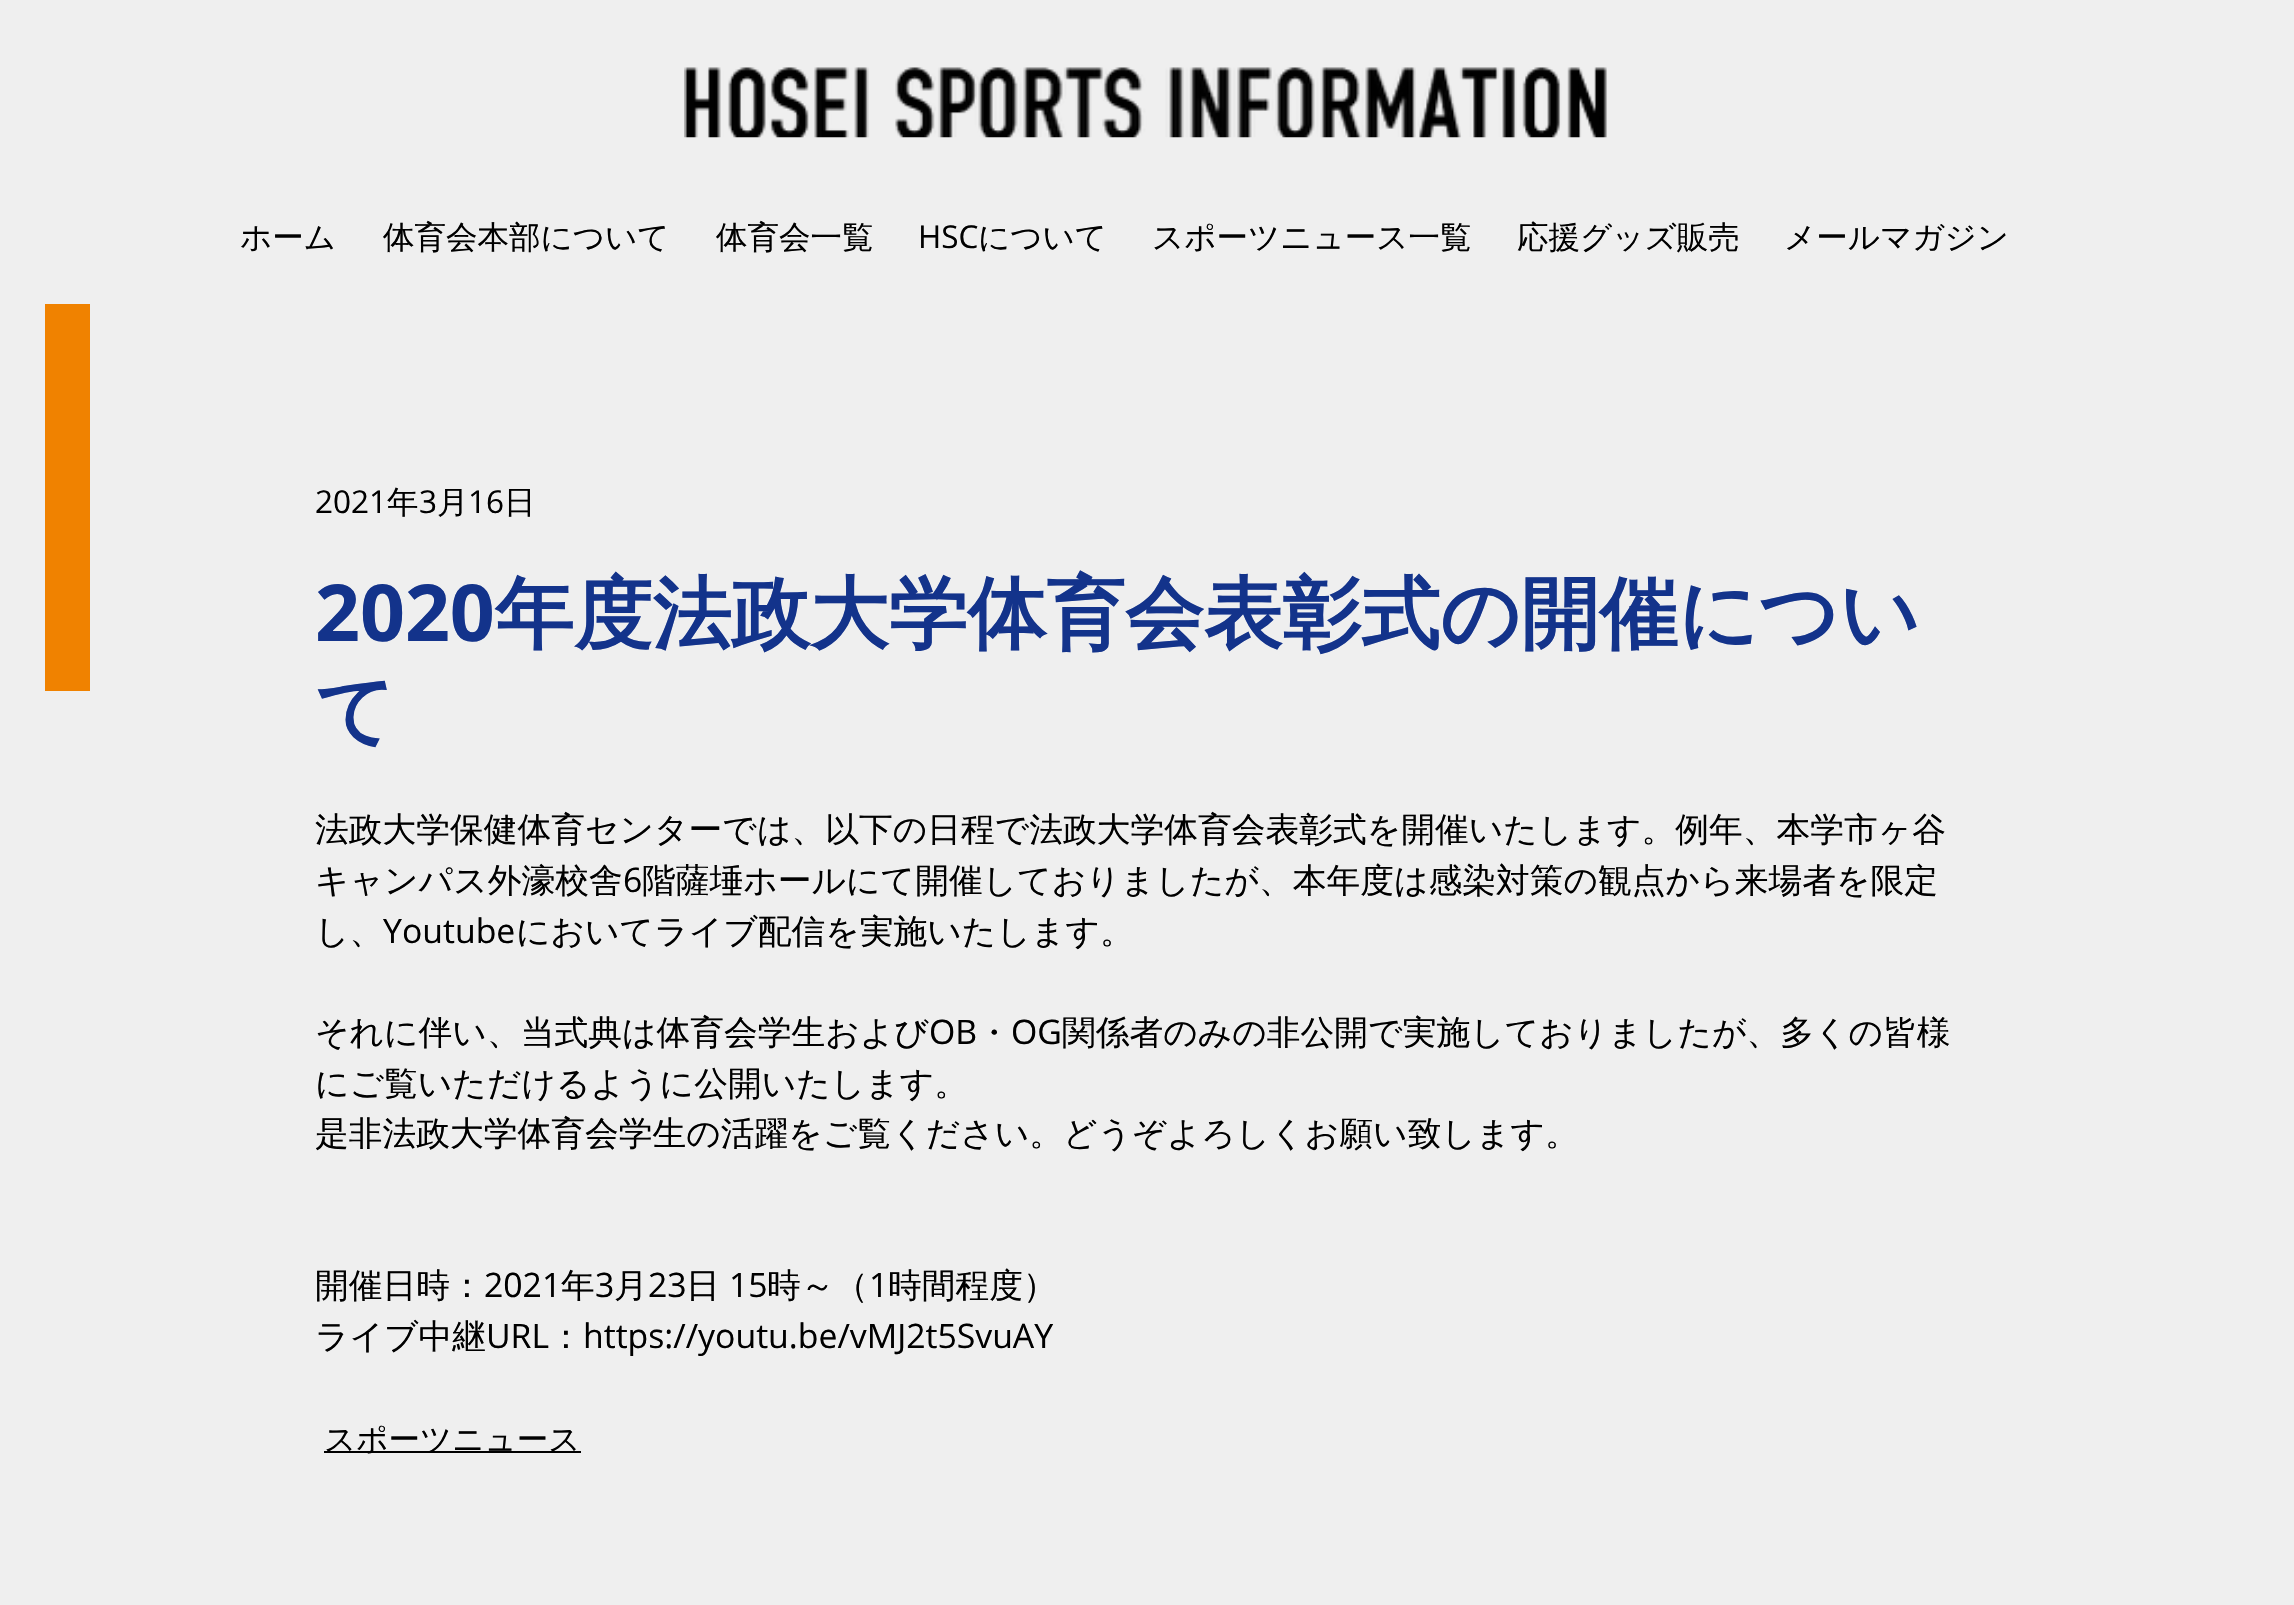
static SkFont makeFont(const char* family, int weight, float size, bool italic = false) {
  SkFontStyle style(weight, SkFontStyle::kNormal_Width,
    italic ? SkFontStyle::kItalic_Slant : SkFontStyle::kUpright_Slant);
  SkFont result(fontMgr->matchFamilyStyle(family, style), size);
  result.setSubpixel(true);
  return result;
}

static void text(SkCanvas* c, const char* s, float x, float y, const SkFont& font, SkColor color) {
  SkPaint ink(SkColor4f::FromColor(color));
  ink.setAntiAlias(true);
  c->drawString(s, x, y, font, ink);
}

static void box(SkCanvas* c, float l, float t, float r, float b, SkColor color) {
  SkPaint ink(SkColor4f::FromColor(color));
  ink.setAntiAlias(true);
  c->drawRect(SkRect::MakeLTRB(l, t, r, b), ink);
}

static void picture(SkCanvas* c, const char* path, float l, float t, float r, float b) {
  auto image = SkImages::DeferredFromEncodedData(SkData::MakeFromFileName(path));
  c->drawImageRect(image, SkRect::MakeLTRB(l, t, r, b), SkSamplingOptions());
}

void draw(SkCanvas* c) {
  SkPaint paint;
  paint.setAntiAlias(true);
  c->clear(0xffefefef);
  picture(c, "img_01.png", 684, 67, 1607, 138);
  SkFont face1 = makeFont("WenQuanYi Zen Hei", 500, 31.5f);
  text(c, "ホーム", 240, 248, face1, 0xff000000);
  text(c, "体育会本部について", 383, 248, face1, 0xff000000);
  text(c, "体育会一覧", 716, 248, face1, 0xff000000);
  SkFont face2 = makeFont("Open Sans", 400, 31.5f);
  text(c, "HSC", 918, 248, face2, 0xff000000);
  text(c, "について", 978, 248, face1, 0xff000000);
  text(c, "スポーツニュース一覧", 1152, 248, face1, 0xff000000);
  text(c, "応援グッズ販売", 1517, 248, face1, 0xff000000);
  text(c, "メールマガジン", 1784, 248, face1, 0xff000000);
  box(c, 45, 304, 90, 691, 0xfff08200);
  text(c, "2021", 315, 513, face2, 0xff000000);
  text(c, "年", 387, 513, face1, 0xff000000);
  text(c, "3", 419, 513, face2, 0xff000000);
  text(c, "月", 437, 513, face1, 0xff000000);
  text(c, "16", 468, 513, face2, 0xff000000);
  text(c, "日", 504, 513, face1, 0xff000000);
  SkFont face3 = makeFont("Open Sans", 700, 78.75f);
  text(c, "2020", 315, 641, face3, 0xff13338b);
  SkFont face4 = makeFont("WenQuanYi Zen Hei", 700, 78.75f);
  text(c, "年度法政大学体育会表彰式の開催につい", 495, 641, face4, 0xff13338b);
  text(c, "て", 315, 738, face4, 0xff13338b);
  SkFont face5 = makeFont("WenQuanYi Zen Hei", 500, 33.75f);
  text(c, "法政大学保健体育センターでは、以下の日程で法政大学体育会表彰式を開催いたします。例年、本学市ヶ谷", 315, 841, face5, 0xff000000);
  text(c, "キャンパス外濠校舎", 315, 892, face5, 0xff000000);
  SkFont face6 = makeFont("Open Sans", 400, 33.75f);
  text(c, "6", 623, 892, face6, 0xff000000);
  text(c, "階薩埵ホールにて開催しておりましたが、本年度は感染対策の観点から来場者を限定", 642, 892, face5, 0xff000000);
  text(c, "し、", 315, 943, face5, 0xff000000);
  text(c, "Youtube", 383, 943, face6, 0xff000000);
  text(c, "においてライブ配信を実施いたします。", 516, 943, face5, 0xff000000);
  text(c, "それに伴い、当式典は体育会学生および", 315, 1044, face5, 0xff000000);
  text(c, "OB", 929, 1044, face6, 0xff000000);
  text(c, "・", 977, 1044, face5, 0xff000000);
  text(c, "OG", 1011, 1044, face6, 0xff000000);
  text(c, "関係者のみの非公開で実施しておりましたが、多くの皆様", 1062, 1044, face5, 0xff000000);
  text(c, "にご覧いただけるように公開いたします。", 315, 1095, face5, 0xff000000);
  text(c, "是非法政大学体育会学生の活躍をご覧ください。どうぞよろしくお願い致します。", 315, 1145, face5, 0xff000000);
  text(c, "開催日時：", 315, 1297, face5, 0xff000000);
  text(c, "2021", 484, 1297, face6, 0xff000000);
  text(c, "年", 561, 1297, face5, 0xff000000);
  text(c, "3", 595, 1297, face6, 0xff000000);
  text(c, "月", 614, 1297, face5, 0xff000000);
  text(c, "23", 648, 1297, face6, 0xff000000);
  text(c, "日", 686, 1297, face5, 0xff000000);
  text(c, "15", 729, 1297, face6, 0xff000000);
  text(c, "時～（", 767, 1297, face5, 0xff000000);
  text(c, "1", 869, 1297, face6, 0xff000000);
  text(c, "時間程度）", 888, 1297, face5, 0xff000000);
  text(c, "ライブ中継", 315, 1348, face5, 0xff000000);
  text(c, "URL", 486, 1348, face6, 0xff000000);
  text(c, "：", 549, 1348, face5, 0xff000000);
  text(c, "https://youtu.be/vMJ2t5SvuAY", 583, 1348, face6, 0xff000000);
  box(c, 324, 1451, 581, 1453, 0xff000000);
  text(c, "スポーツニュース", 324, 1450, face1, 0xff000000);
}
